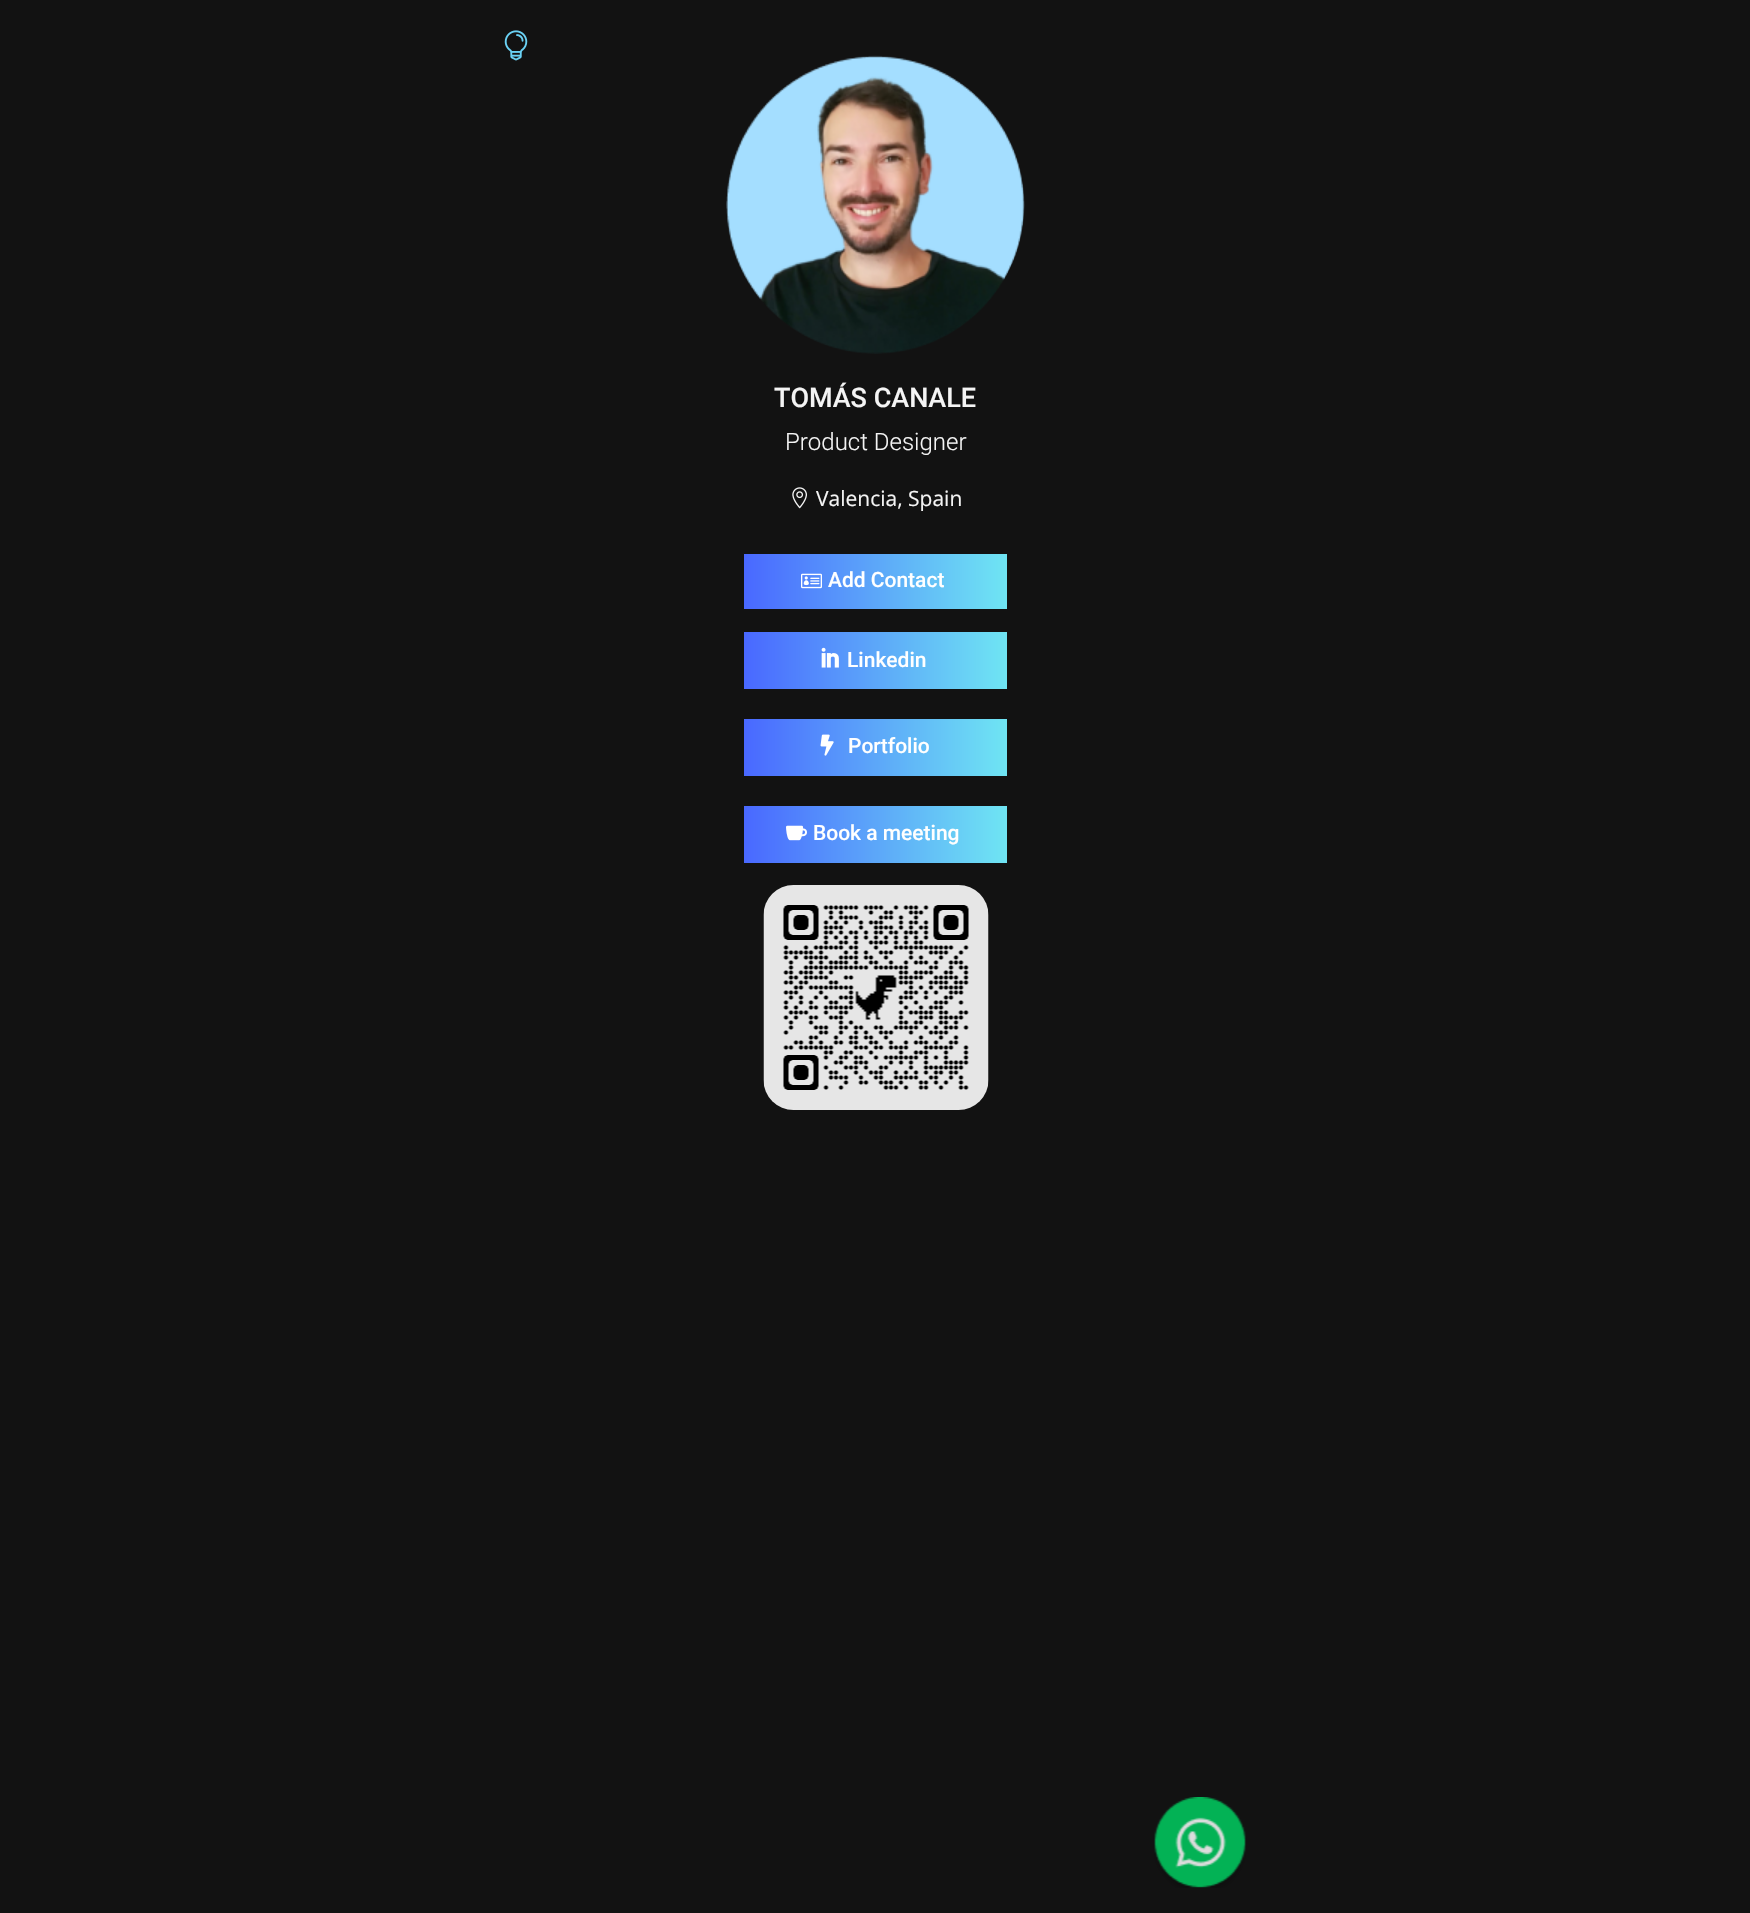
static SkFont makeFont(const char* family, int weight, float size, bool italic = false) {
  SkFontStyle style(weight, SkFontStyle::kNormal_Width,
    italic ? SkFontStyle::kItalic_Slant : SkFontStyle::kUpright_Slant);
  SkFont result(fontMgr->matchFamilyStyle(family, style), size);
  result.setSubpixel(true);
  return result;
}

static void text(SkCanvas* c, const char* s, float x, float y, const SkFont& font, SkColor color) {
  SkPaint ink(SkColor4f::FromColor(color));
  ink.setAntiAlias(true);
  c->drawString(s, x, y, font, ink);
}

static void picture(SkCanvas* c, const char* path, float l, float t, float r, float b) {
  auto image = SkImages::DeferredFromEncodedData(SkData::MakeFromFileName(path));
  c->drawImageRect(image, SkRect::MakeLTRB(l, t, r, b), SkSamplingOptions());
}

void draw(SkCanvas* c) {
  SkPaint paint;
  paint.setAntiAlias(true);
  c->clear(0xff121212);
  picture(c, "img_01.png", 504, 30, 528, 61);
  picture(c, "img_02.png", 726, 55, 1025, 354);
  SkFont face1 = makeFont("Roboto", 500, 27);
  text(c, "TOMÁS CANALE", 774, 407, face1, 0xfff4f4f4);
  SkFont face2 = makeFont("Roboto", 300, 24);
  text(c, "Product Designer", 785, 450, face2, 0xfff4f4f4);
  picture(c, "img_03.png", 792, 487, 807, 509);
  SkFont face3 = makeFont("Open Sans", 400, 21);
  text(c, "Valencia, Spain", 816, 506, face3, 0xfff4f4f4);
  {
    const SkColor colors[] = {0xff4968ff, 0xff6fe5f3};
    const float stops[] = {0, 1};
    const SkPoint ends[] = {{744, 581}, {1007, 581}};
    paint.setShader(SkGradientShader::MakeLinear(ends, colors, stops, 2, SkTileMode::kClamp));
    paint.setAlpha(255);
  }
  c->drawRect(SkRect::MakeLTRB(744, 554, 1007, 609), paint);
  picture(c, "img_04.png", 801, 573, 822, 589);
  SkFont face4 = makeFont("Roboto", 500, 21);
  text(c, "Add Contact", 828, 587, face4, 0xffffffff);
  {
    const SkColor colors[] = {0xff4968ff, 0xff6fe5f3};
    const float stops[] = {0, 1};
    const SkPoint ends[] = {{744, 660}, {1007, 660}};
    paint.setShader(SkGradientShader::MakeLinear(ends, colors, stops, 2, SkTileMode::kClamp));
    paint.setAlpha(255);
  }
  c->drawRect(SkRect::MakeLTRB(744, 632, 1007, 689), paint);
  picture(c, "img_05.png", 821, 647, 839, 668);
  text(c, "Linkedin", 847, 667, face4, 0xffffffff);
  {
    const SkColor colors[] = {0xff4968ff, 0xff6fe5f3};
    const float stops[] = {0, 1};
    const SkPoint ends[] = {{744, 747}, {1007, 747}};
    paint.setShader(SkGradientShader::MakeLinear(ends, colors, stops, 2, SkTileMode::kClamp));
    paint.setAlpha(255);
  }
  c->drawRect(SkRect::MakeLTRB(744, 719, 1007, 776), paint);
  picture(c, "img_06.png", 820, 734, 834, 756);
  text(c, "Portfolio", 848, 753, face4, 0xffffffff);
  {
    const SkColor colors[] = {0xff4968ff, 0xff6fe5f3};
    const float stops[] = {0, 1};
    const SkPoint ends[] = {{744, 834}, {1007, 834}};
    paint.setShader(SkGradientShader::MakeLinear(ends, colors, stops, 2, SkTileMode::kClamp));
    paint.setAlpha(255);
  }
  c->drawRect(SkRect::MakeLTRB(744, 806, 1007, 863), paint);
  picture(c, "img_07.png", 786, 825, 807, 841);
  text(c, "Book a meeting", 813, 840, face4, 0xffffffff);
  picture(c, "img_08.png", 763, 885, 989, 1110);
  picture(c, "img_09.png", 1154, 1797, 1246, 1888);
}
